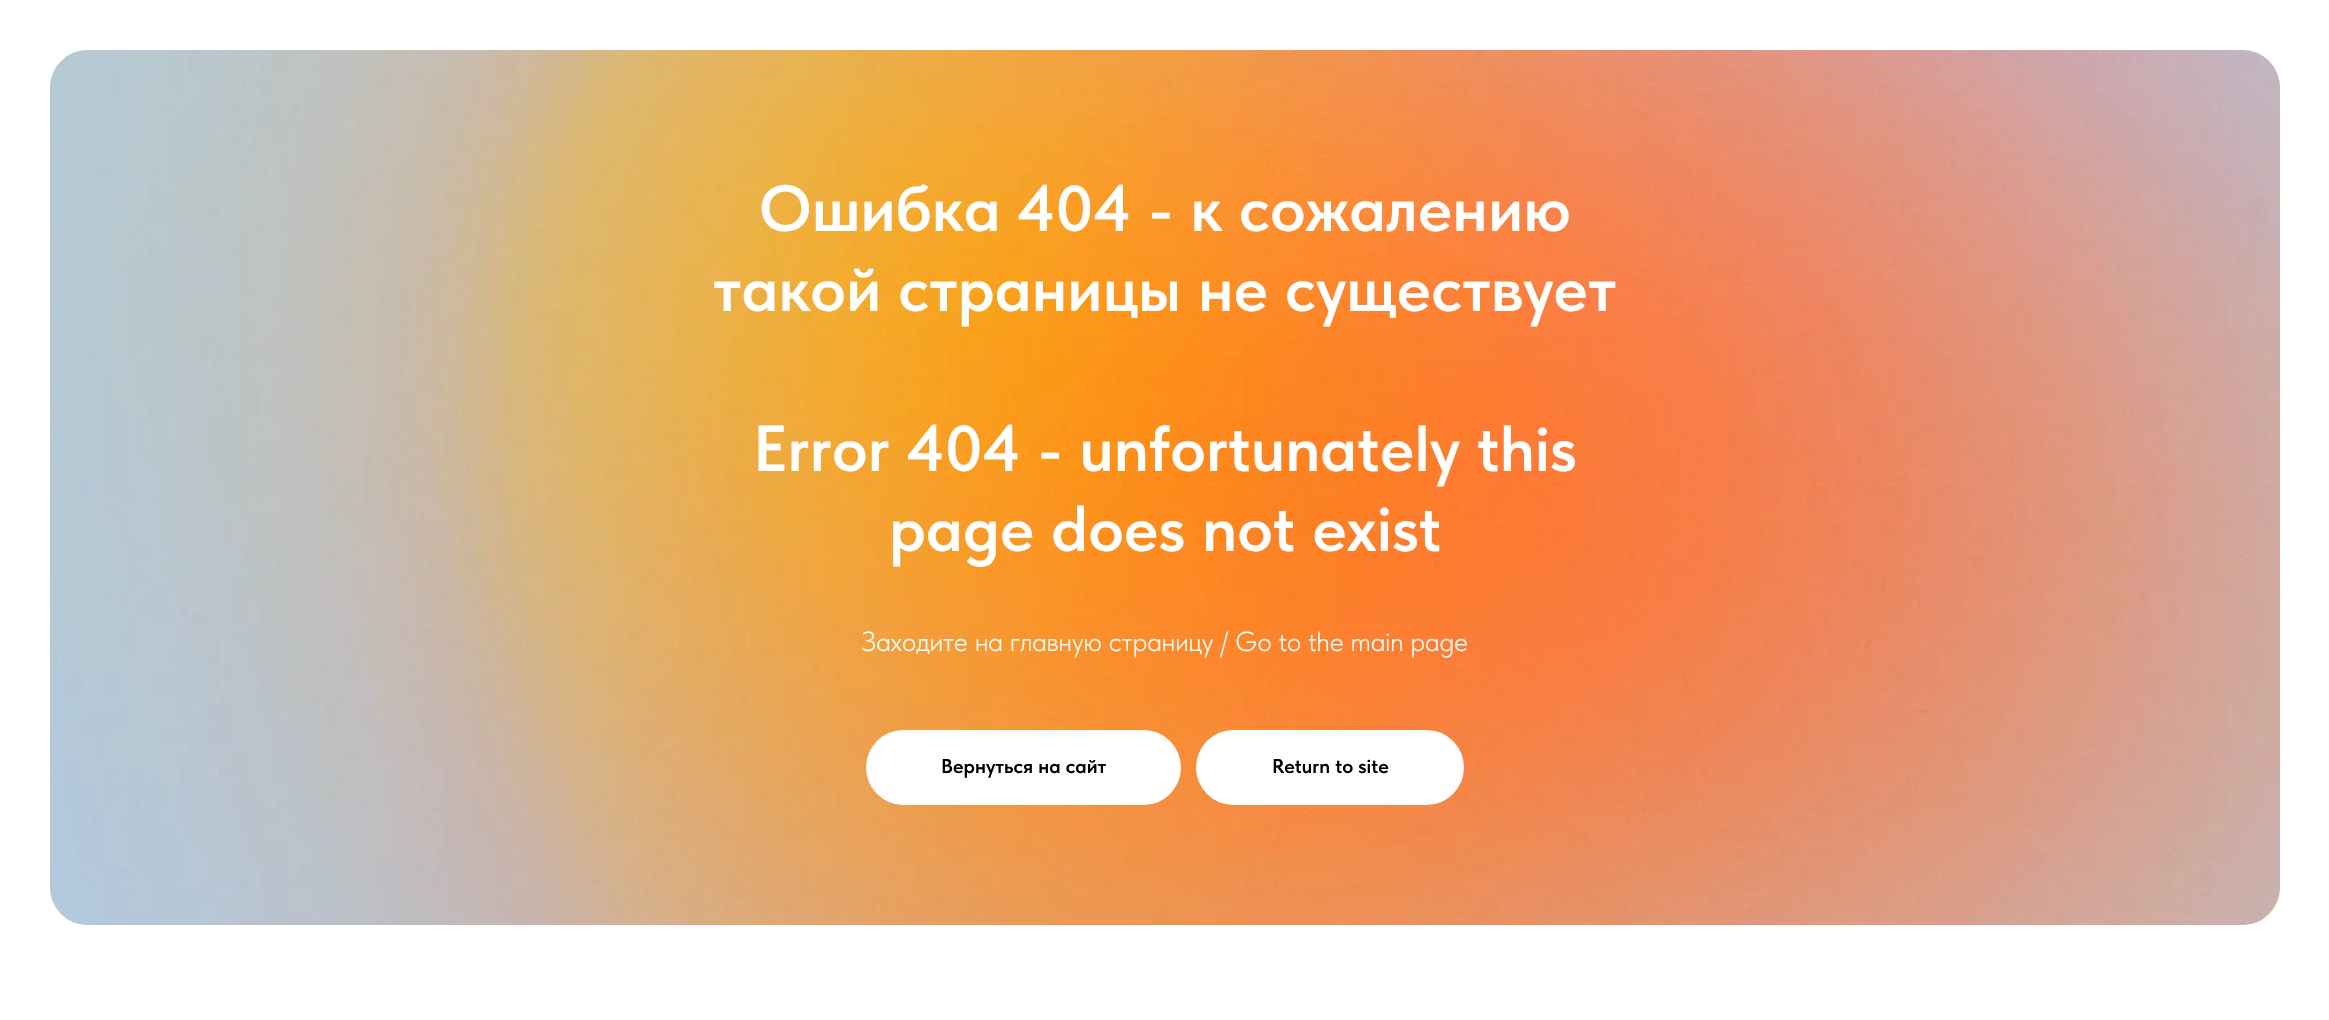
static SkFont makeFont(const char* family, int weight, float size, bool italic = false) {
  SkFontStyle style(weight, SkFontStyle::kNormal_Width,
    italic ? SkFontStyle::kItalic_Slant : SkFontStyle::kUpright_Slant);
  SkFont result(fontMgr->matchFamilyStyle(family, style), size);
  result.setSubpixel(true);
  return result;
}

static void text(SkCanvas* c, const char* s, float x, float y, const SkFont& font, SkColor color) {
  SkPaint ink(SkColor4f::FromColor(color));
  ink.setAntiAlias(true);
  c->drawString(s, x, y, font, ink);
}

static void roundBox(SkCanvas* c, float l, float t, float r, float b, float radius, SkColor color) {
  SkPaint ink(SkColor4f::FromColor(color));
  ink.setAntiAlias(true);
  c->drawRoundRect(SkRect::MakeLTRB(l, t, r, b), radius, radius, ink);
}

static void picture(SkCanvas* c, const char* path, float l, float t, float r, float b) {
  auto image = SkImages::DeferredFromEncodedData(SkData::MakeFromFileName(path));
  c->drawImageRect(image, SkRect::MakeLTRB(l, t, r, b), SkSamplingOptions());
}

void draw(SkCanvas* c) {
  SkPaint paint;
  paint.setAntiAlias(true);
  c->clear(0xffffffff);
  picture(c, "img_01.png", 50, 50, 2280, 925);
  picture(c, "img_02.png", 50, 50, 2280, 925);
  SkFont face1 = makeFont("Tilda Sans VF", 600, 65);
  text(c, "Ошибка 404 - к сожалению", 759, 231, face1, 0xffffffff);
  text(c, "такой страницы не существует", 713, 311, face1, 0xffffffff);
  text(c, "Error 404 - unfortunately this", 753, 471, face1, 0xffffffff);
  text(c, "page does not exist", 889, 551, face1, 0xffffffff);
  SkFont face2 = makeFont("Tilda Sans VF", 300, 27.5f);
  text(c, "Заходите на главную страницу / Go to the main page", 861, 651, face2, 0xffffffff);
  roundBox(c, 866, 730, 1181, 805, 37.5f, 0xffffffff);
  SkFont face3 = makeFont("Tilda Sans VF", 600, 20);
  text(c, "Вернуться на сайт", 941, 773, face3, 0xff000000);
  roundBox(c, 1196, 730, 1464, 805, 37.5f, 0xffffffff);
  text(c, "Return to site", 1272, 773, face3, 0xff000000);
}
